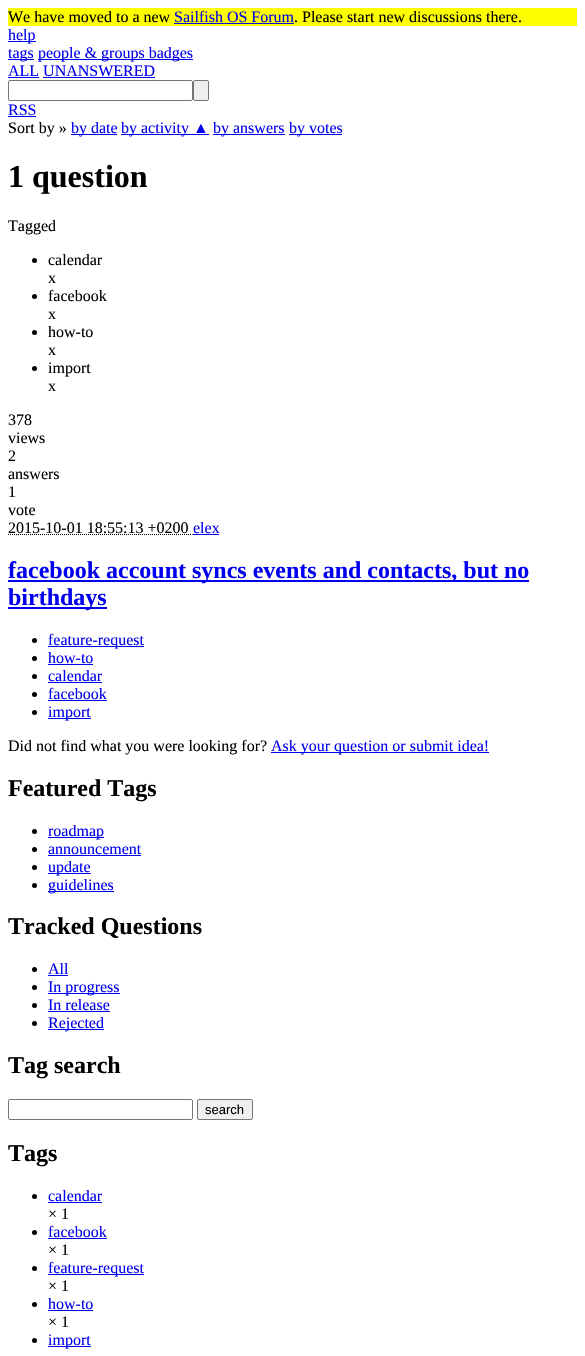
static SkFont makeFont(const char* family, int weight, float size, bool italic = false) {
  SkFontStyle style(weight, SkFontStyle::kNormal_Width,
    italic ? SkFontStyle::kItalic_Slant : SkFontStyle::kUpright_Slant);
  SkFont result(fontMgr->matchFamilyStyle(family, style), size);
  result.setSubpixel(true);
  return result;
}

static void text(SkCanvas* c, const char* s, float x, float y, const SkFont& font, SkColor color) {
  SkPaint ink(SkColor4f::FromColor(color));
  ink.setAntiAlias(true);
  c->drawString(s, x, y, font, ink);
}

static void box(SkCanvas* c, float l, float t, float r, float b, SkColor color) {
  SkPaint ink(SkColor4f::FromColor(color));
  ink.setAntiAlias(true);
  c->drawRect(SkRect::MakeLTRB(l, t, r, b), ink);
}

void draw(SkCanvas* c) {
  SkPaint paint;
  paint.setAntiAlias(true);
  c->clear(0xffffffff);
  box(c, 8, 8, 577, 26, 0xffffff00);
  SkFont face1 = makeFont("Liberation Serif", 400, 16);
  text(c, "We have moved to a new", 8, 22, face1, 0xff000000);
  text(c, "Sailfish OS Forum", 174, 22, face1, 0xff0000ee);
  box(c, 174, 23, 294, 24, 0xff0000ee);
  text(c, ". Please start new discussions there.", 294, 22, face1, 0xff000000);
  box(c, 8, 41, 36, 42, 0xff0000ee);
  text(c, "help", 8, 40, face1, 0xff0000ee);
  box(c, 8, 59, 34, 60, 0xff0000ee);
  text(c, "tags", 8, 58, face1, 0xff0000ee);
  box(c, 38, 59, 193, 60, 0xff0000ee);
  text(c, "people & groups badges", 38, 58, face1, 0xff0000ee);
  text(c, "ALL UNANSWERED", 8, 76, face1, 0xff0000ee);
  box(c, 8, 77, 39, 78, 0xff0000ee);
  box(c, 43, 77, 155, 78, 0xff0000ee);
  paint.setStyle(SkPaint::kStroke_Style);
  paint.setStrokeWidth(1);
  paint.setColor(0xff767676);
  c->drawRoundRect(SkRect::MakeLTRB(8.5f, 80.5f, 192.5f, 100.5f), 1.5f, 1.5f, paint);
  paint.setStyle(SkPaint::kFill_Style);
  paint.setColor(0xffefefef);
  c->drawRoundRect(SkRect::MakeLTRB(193.5f, 80.5f, 208.5f, 100.5f), 1.5f, 1.5f, paint);
  paint.setStyle(SkPaint::kStroke_Style);
  paint.setColor(0xff767676);
  c->drawRoundRect(SkRect::MakeLTRB(193.5f, 80.5f, 208.5f, 100.5f), 1.5f, 1.5f, paint);
  text(c, "RSS", 8, 115, face1, 0xff0000ee);
  box(c, 8, 116, 36, 117, 0xff0000ee);
  text(c, "Sort by »", 8, 133, face1, 0xff000000);
  box(c, 71, 134, 117, 135, 0xff0000ee);
  text(c, "by date", 71, 133, face1, 0xff0000ee);
  box(c, 121, 134, 209, 135, 0xff0000ee);
  text(c, "by activity ▲", 121, 133, face1, 0xff0000ee);
  box(c, 213, 134, 285, 135, 0xff0000ee);
  text(c, "by answers", 213, 133, face1, 0xff0000ee);
  box(c, 289, 134, 342, 135, 0xff0000ee);
  text(c, "by votes", 289, 133, face1, 0xff0000ee);
  SkFont face2 = makeFont("Liberation Serif", 700, 32);
  text(c, "1 question", 8, 187, face2, 0xff000000);
  text(c, "Tagged", 8, 231, face1, 0xff000000);
  paint.setStyle(SkPaint::kFill_Style);
  paint.setColor(0xff000000);
  c->drawCircle(34.5f, 260.5f, 2.5f, paint);
  text(c, "calendar", 48, 265, face1, 0xff000000);
  text(c, "x", 48, 283, face1, 0xff000000);
  c->drawCircle(34.5f, 296.5f, 2.5f, paint);
  text(c, "facebook", 48, 301, face1, 0xff000000);
  text(c, "x", 48, 319, face1, 0xff000000);
  c->drawCircle(34.5f, 332.5f, 2.5f, paint);
  text(c, "how-to", 48, 337, face1, 0xff000000);
  text(c, "x", 48, 355, face1, 0xff000000);
  c->drawCircle(34.5f, 368.5f, 2.5f, paint);
  text(c, "import", 48, 373, face1, 0xff000000);
  text(c, "x", 48, 391, face1, 0xff000000);
  text(c, "378", 8, 425, face1, 0xff000000);
  text(c, "views", 8, 443, face1, 0xff000000);
  text(c, "2", 8, 461, face1, 0xff000000);
  text(c, "answers", 8, 479, face1, 0xff000000);
  text(c, "1", 8, 497, face1, 0xff000000);
  text(c, "vote", 8, 515, face1, 0xff000000);
  text(c, "2015-10-01 18:55:13 +0200", 8, 533, face1, 0xff000000);
  paint.setStyle(SkPaint::kStroke_Style);
  paint.setPathEffect(SkDashPathEffect::Make({{1, 1}}, 0));
  c->drawPath(SkPathBuilder().moveTo(8, 534.5f).lineTo(192.5f, 534.5f).detach(), paint);
  paint.setPathEffect(nullptr);
  text(c, "elex", 193, 533, face1, 0xff0000ee);
  box(c, 193, 534, 219, 535, 0xff0000ee);
  box(c, 8, 580, 529, 582, 0xff0000ee);
  SkFont face3 = makeFont("Liberation Serif", 700, 24);
  text(c, "facebook account syncs events and contacts, but no", 8, 578, face3, 0xff0000ee);
  box(c, 8, 607, 107, 609, 0xff0000ee);
  text(c, "birthdays", 8, 605, face3, 0xff0000ee);
  paint.setStyle(SkPaint::kFill_Style);
  c->drawCircle(34.5f, 640.5f, 2.5f, paint);
  box(c, 48, 646, 144, 647, 0xff0000ee);
  text(c, "feature-request", 48, 645, face1, 0xff0000ee);
  c->drawCircle(34.5f, 658.5f, 2.5f, paint);
  text(c, "how-to", 48, 663, face1, 0xff0000ee);
  box(c, 48, 664, 93, 665, 0xff0000ee);
  c->drawCircle(34.5f, 676.5f, 2.5f, paint);
  text(c, "calendar", 48, 681, face1, 0xff0000ee);
  box(c, 48, 682, 102, 683, 0xff0000ee);
  c->drawCircle(34.5f, 694.5f, 2.5f, paint);
  text(c, "facebook", 48, 699, face1, 0xff0000ee);
  box(c, 48, 700, 107, 701, 0xff0000ee);
  c->drawCircle(34.5f, 712.5f, 2.5f, paint);
  box(c, 48, 718, 91, 719, 0xff0000ee);
  text(c, "import", 48, 717, face1, 0xff0000ee);
  text(c, "Did not find what you were looking for?", 8, 751, face1, 0xff000000);
  box(c, 271, 752, 489, 753, 0xff0000ee);
  text(c, "Ask your question or submit idea!", 271, 751, face1, 0xff0000ee);
  text(c, "Featured Tags", 8, 796, face3, 0xff000000);
  c->drawCircle(34.5f, 831.5f, 2.5f, paint);
  box(c, 48, 837, 104, 838, 0xff0000ee);
  text(c, "roadmap", 48, 836, face1, 0xff0000ee);
  c->drawCircle(34.5f, 849.5f, 2.5f, paint);
  text(c, "announcement", 48, 854, face1, 0xff0000ee);
  box(c, 48, 855, 141, 856, 0xff0000ee);
  c->drawCircle(34.5f, 867.5f, 2.5f, paint);
  box(c, 48, 873, 91, 874, 0xff0000ee);
  text(c, "update", 48, 872, face1, 0xff0000ee);
  c->drawCircle(34.5f, 885.5f, 2.5f, paint);
  box(c, 48, 891, 114, 892, 0xff0000ee);
  text(c, "guidelines", 48, 890, face1, 0xff0000ee);
  text(c, "Tracked Questions", 8, 934, face3, 0xff000000);
  c->drawCircle(34.5f, 969.5f, 2.5f, paint);
  text(c, "All", 48, 974, face1, 0xff0000ee);
  box(c, 48, 975, 68, 976, 0xff0000ee);
  c->drawCircle(34.5f, 987.5f, 2.5f, paint);
  box(c, 48, 993, 120, 994, 0xff0000ee);
  text(c, "In progress", 48, 992, face1, 0xff0000ee);
  c->drawCircle(34.5f, 1005.5f, 2.5f, paint);
  text(c, "In release", 48, 1010, face1, 0xff0000ee);
  box(c, 48, 1011, 110, 1012, 0xff0000ee);
  c->drawCircle(34.5f, 1023.5f, 2.5f, paint);
  box(c, 48, 1029, 104, 1030, 0xff0000ee);
  text(c, "Rejected", 48, 1028, face1, 0xff0000ee);
  text(c, "Tag search", 8, 1073, face3, 0xff000000);
  paint.setStyle(SkPaint::kStroke_Style);
  paint.setColor(0xff767676);
  c->drawRoundRect(SkRect::MakeLTRB(8.5f, 1099.5f, 192.5f, 1119.5f), 1.5f, 1.5f, paint);
  paint.setStyle(SkPaint::kFill_Style);
  paint.setColor(0xffefefef);
  c->drawRoundRect(SkRect::MakeLTRB(197.5f, 1099.5f, 252.5f, 1119.5f), 1.5f, 1.5f, paint);
  paint.setStyle(SkPaint::kStroke_Style);
  paint.setColor(0xff767676);
  c->drawRoundRect(SkRect::MakeLTRB(197.5f, 1099.5f, 252.5f, 1119.5f), 1.5f, 1.5f, paint);
  SkFont face4 = makeFont("Liberation Sans", 400, 13);
  text(c, "search", 205, 1114, face4, 0xff000000);
  text(c, "Tags", 8, 1161, face3, 0xff000000);
  paint.setStyle(SkPaint::kFill_Style);
  paint.setColor(0xff000000);
  c->drawCircle(34.5f, 1196.5f, 2.5f, paint);
  text(c, "calendar", 48, 1201, face1, 0xff0000ee);
  box(c, 48, 1202, 102, 1203, 0xff0000ee);
  text(c, "× 1", 48, 1219, face1, 0xff000000);
  c->drawCircle(34.5f, 1232.5f, 2.5f, paint);
  text(c, "facebook", 48, 1237, face1, 0xff0000ee);
  box(c, 48, 1238, 107, 1239, 0xff0000ee);
  text(c, "× 1", 48, 1255, face1, 0xff000000);
  c->drawCircle(34.5f, 1268.5f, 2.5f, paint);
  box(c, 48, 1274, 144, 1275, 0xff0000ee);
  text(c, "feature-request", 48, 1273, face1, 0xff0000ee);
  text(c, "× 1", 48, 1291, face1, 0xff000000);
  c->drawCircle(34.5f, 1304.5f, 2.5f, paint);
  text(c, "how-to", 48, 1309, face1, 0xff0000ee);
  box(c, 48, 1310, 93, 1311, 0xff0000ee);
  text(c, "× 1", 48, 1327, face1, 0xff000000);
  c->drawCircle(34.5f, 1340.5f, 2.5f, paint);
  box(c, 48, 1346, 91, 1347, 0xff0000ee);
  text(c, "import", 48, 1345, face1, 0xff0000ee);
}
